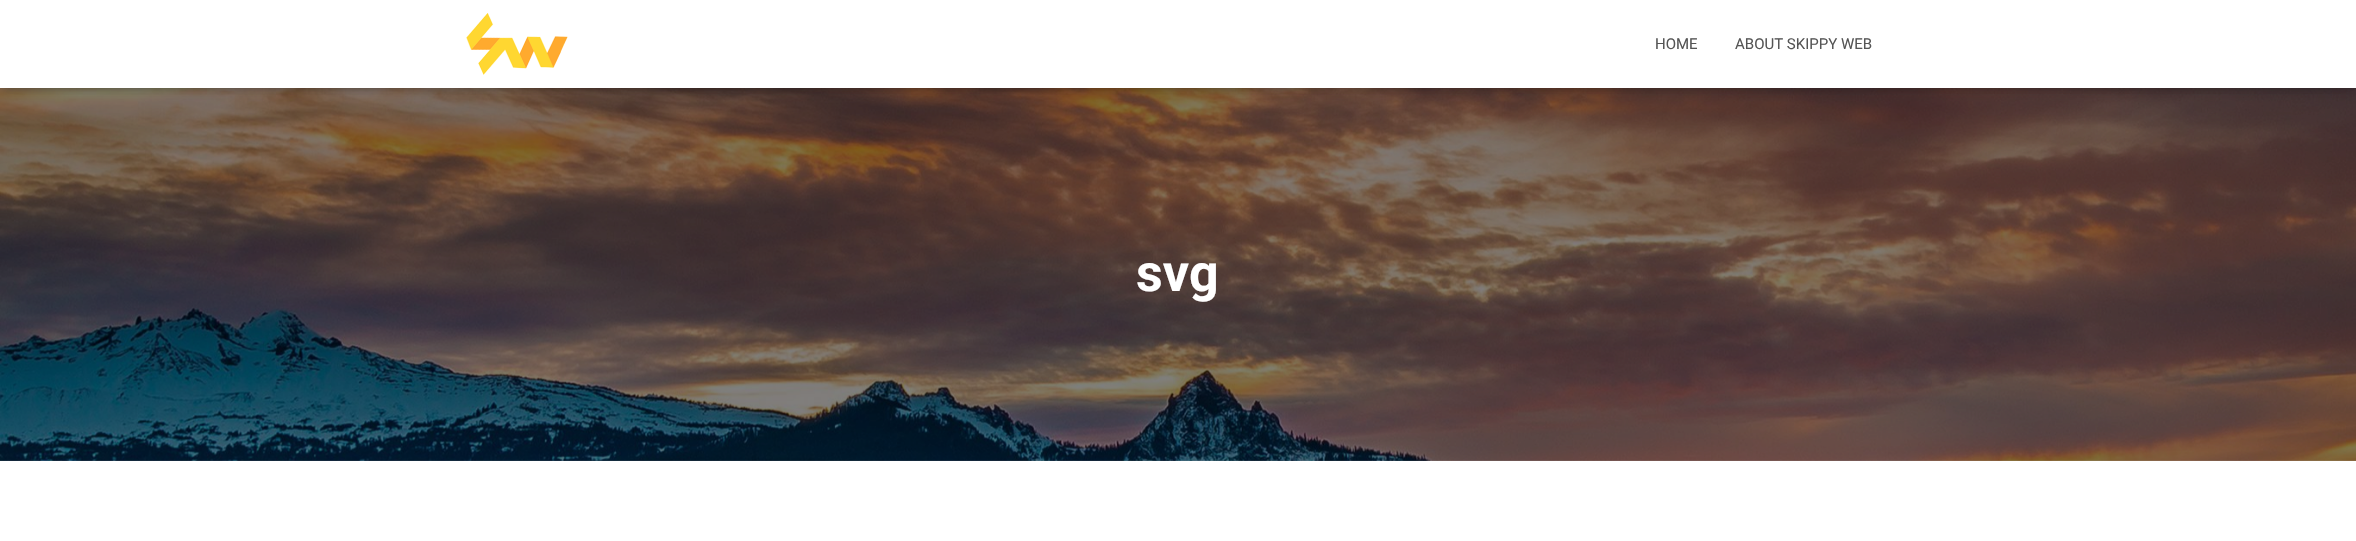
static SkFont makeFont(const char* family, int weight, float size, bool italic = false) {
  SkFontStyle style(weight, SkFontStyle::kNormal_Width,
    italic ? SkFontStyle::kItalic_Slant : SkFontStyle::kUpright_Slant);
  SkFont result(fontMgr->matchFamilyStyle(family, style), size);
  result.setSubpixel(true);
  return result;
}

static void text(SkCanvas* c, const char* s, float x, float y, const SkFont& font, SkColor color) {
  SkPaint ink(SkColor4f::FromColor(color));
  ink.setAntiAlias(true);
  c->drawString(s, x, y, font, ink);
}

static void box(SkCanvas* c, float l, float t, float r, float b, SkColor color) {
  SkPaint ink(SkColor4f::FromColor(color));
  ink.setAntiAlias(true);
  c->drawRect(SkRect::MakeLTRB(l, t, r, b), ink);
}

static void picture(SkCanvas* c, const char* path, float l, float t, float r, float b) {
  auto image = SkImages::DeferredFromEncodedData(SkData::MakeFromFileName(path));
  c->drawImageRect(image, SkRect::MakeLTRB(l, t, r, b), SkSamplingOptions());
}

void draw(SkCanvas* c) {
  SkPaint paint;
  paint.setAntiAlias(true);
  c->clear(0xffffffff);
  picture(c, "img_02.png", 0, 88, 2356, 461);
  paint.setColor(0x1a000000);
  paint.setMaskFilter(SkMaskFilter::MakeBlur(kNormal_SkBlurStyle, 3));
  c->drawRect(SkRect::MakeLTRB(3, 8, 2354, 90), paint);
  paint.setMaskFilter(nullptr);
  paint.setColor(0x1f000000);
  paint.setMaskFilter(SkMaskFilter::MakeBlur(kNormal_SkBlurStyle, 6));
  c->drawRect(SkRect::MakeLTRB(0, 1, 2356, 89), paint);
  paint.setMaskFilter(nullptr);
  paint.setColor(0x6b000000);
  paint.setMaskFilter(SkMaskFilter::MakeBlur(kNormal_SkBlurStyle, 6));
  c->drawRect(SkRect::MakeLTRB(8, 9, 2349, 81), paint);
  paint.setMaskFilter(nullptr);
  box(c, 0, 0, 2356, 88, 0xffffffff);
  picture(c, "img_01.png", 466, 13, 568, 75);
  SkFont face1 = makeFont("Roboto", 400, 15);
  text(c, "HOME", 1655, 49, face1, 0xff555555);
  text(c, "ABOUT SKIPPY WEB", 1735, 49, face1, 0xff555555);
  SkFont face2 = makeFont("Roboto", 700, 52);
  text(c, "svg", 1136, 291, face2, 0xffffffff);
}
